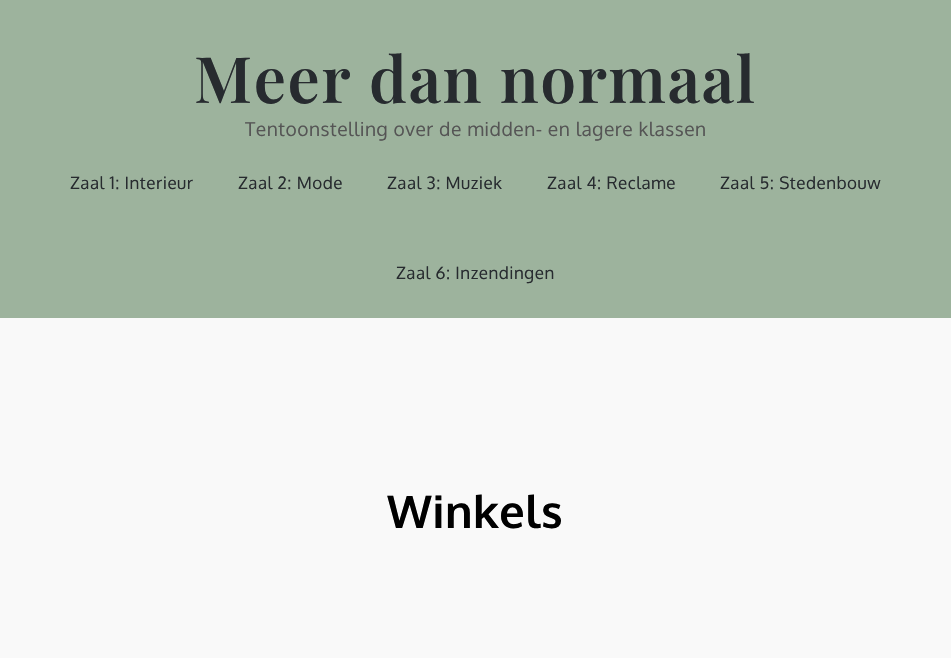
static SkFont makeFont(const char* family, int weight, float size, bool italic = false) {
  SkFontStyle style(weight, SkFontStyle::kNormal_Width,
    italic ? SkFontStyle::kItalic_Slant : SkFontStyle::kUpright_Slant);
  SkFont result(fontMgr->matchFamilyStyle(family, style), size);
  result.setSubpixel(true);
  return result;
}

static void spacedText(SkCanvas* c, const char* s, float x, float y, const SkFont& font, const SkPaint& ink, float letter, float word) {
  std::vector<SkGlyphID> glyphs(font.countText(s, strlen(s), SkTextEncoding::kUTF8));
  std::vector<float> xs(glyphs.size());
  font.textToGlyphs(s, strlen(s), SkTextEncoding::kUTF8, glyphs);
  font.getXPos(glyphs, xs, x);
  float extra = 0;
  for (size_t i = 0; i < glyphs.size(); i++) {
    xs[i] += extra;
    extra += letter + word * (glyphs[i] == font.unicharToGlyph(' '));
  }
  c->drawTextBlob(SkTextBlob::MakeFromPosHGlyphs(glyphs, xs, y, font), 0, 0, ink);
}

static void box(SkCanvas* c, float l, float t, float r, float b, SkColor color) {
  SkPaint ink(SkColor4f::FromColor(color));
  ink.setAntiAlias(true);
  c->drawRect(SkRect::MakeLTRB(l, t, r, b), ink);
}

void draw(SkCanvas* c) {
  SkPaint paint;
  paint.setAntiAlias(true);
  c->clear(0xfff9f9f9);
  box(c, 0, 0, 951, 318, 0xff9db39d);
  SkFont face1 = makeFont("Playfair Display", 600, 64);
  paint.setColor(0xff272b2f);
  spacedText(c, "Meer dan normaal", 194, 103, face1, paint, 1.5f, 0);
  SkFont face2 = makeFont("Oxygen", 400, 19.2f);
  paint.setColor(0xff555555);
  spacedText(c, "Tentoonstelling over de midden- en lagere klassen", 245, 136, face2, paint, 0.5f, 0);
  SkFont face3 = makeFont("Oxygen", 400, 17);
  paint.setColor(0xff272b2f);
  spacedText(c, "Zaal 1: Interieur", 70, 189, face3, paint, 0.5f, 0);
  spacedText(c, "Zaal 2: Mode", 238, 189, face3, paint, 0.5f, 0);
  spacedText(c, "Zaal 3: Muziek", 387, 189, face3, paint, 0.5f, 0);
  spacedText(c, "Zaal 4: Reclame", 547, 189, face3, paint, 0.5f, 0);
  spacedText(c, "Zaal 5: Stedenbouw", 720, 189, face3, paint, 0.5f, 0);
  spacedText(c, "Zaal 6: Inzendingen", 396, 279, face3, paint, 0.5f, 0);
  SkFont face4 = makeFont("Oxygen", 700, 45);
  paint.setColor(0xff000000);
  spacedText(c, "Winkels", 387, 528, face4, paint, 0.5f, 0);
}
